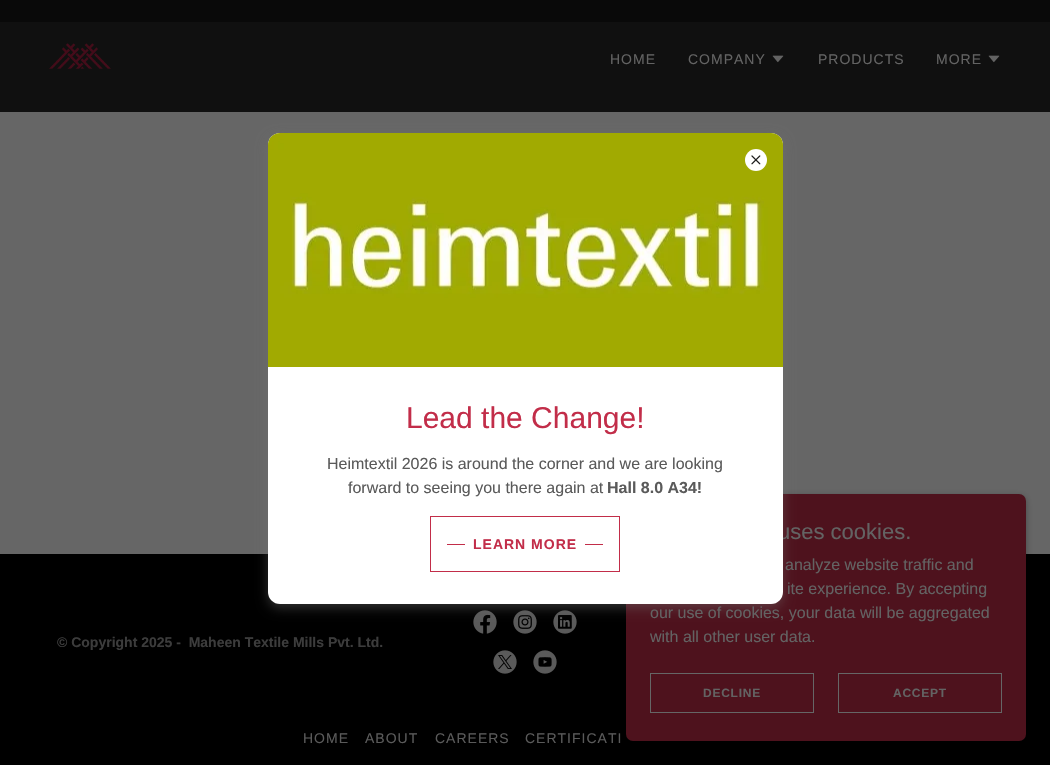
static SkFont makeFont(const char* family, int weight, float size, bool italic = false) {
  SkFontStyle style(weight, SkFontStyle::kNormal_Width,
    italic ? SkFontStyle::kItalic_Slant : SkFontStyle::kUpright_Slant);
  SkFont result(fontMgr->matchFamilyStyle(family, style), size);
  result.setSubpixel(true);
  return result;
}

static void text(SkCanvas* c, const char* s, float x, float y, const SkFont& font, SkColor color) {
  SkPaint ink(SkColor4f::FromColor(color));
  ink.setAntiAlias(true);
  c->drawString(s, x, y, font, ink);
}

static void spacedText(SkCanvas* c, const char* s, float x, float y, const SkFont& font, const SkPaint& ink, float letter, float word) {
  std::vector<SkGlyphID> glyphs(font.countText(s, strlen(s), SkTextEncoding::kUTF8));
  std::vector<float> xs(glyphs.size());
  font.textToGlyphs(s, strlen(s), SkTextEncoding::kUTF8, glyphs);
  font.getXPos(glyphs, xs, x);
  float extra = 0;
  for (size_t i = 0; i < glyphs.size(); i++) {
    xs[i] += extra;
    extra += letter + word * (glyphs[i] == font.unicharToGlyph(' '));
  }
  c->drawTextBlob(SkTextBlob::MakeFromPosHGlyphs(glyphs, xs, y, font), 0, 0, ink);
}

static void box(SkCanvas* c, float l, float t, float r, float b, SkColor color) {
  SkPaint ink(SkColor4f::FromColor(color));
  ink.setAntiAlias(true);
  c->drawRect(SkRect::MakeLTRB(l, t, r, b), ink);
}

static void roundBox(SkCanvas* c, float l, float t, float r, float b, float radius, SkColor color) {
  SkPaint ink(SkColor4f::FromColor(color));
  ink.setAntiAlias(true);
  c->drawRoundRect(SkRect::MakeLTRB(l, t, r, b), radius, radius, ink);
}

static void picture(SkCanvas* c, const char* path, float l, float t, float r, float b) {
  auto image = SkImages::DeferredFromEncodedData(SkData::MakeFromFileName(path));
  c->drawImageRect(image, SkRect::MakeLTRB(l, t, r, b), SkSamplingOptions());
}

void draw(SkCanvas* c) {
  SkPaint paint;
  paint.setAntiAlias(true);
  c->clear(0xff000000);
  box(c, 0, 112, 1050, 554, 0xff666666);
  box(c, 0, 22, 1050, 112, 0xff101010);
  box(c, 0, 0, 1050, 22, 0xff090909);
  picture(c, "img_01.png", 49, 43, 111, 69);
  SkFont face1 = makeFont("Liberation Sans", 400, 14);
  paint.setColor(0xff636363);
  spacedText(c, "HOME", 610, 64, face1, paint, 1, 0);
  spacedText(c, "COMPANY", 688, 64, face1, paint, 1, 0);
  picture(c, "img_02.png", 772, 55, 784, 63);
  spacedText(c, "PRODUCTS", 818, 64, face1, paint, 1, 0);
  spacedText(c, "MORE", 936, 64, face1, paint, 1, 0);
  picture(c, "img_02.png", 988, 55, 1000, 63);
  picture(c, "img_05.png", 473, 610, 497, 634);
  picture(c, "img_06.png", 513, 610, 537, 634);
  picture(c, "img_07.png", 553, 610, 577, 634);
  paint.setColor(0x4d000000);
  paint.setMaskFilter(SkMaskFilter::MakeBlur(kNormal_SkBlurStyle, 3));
  c->drawRoundRect(SkRect::MakeLTRB(626, 496, 1026, 743), 7, 7, paint);
  paint.setMaskFilter(nullptr);
  roundBox(c, 626, 494, 1026, 741, 7, 0xff4e121d);
  paint.setColor(0x66757575);
  paint.setMaskFilter(SkMaskFilter::MakeBlur(kNormal_SkBlurStyle, 6));
  c->drawRoundRect(SkRect::MakeLTRB(268, 137, 783, 608), 12, 12, paint);
  paint.setMaskFilter(nullptr);
  SkFont face2 = makeFont("Liberation Sans", 400, 22);
  text(c, "uses cookies.", 778, 539, face2, 0xff636363);
  roundBox(c, 268, 133, 783, 604, 12, 0xffffffff);
  picture(c, "img_04.png", 268, 133, 783, 367);
  paint.setColor(0xffffffff);
  c->drawCircle(756, 160, 11, paint);
  picture(c, "img_03.png", 751, 155, 761, 165);
  SkFont face3 = makeFont("Liberation Sans", 400, 30);
  text(c, "Lead the Change!", 406, 428, face3, 0xffc22d49);
  SkFont face4 = makeFont("Liberation Sans", 400, 16);
  text(c, "Heimtextil 2026 is around the corner and we are looking", 327, 469, face4, 0xff5a5a5a);
  text(c, "forward to seeing you there again at", 348, 493, face4, 0xff5a5a5a);
  SkFont face5 = makeFont("Liberation Sans", 700, 16);
  text(c, "Hall 8.0 A34!", 607, 493, face5, 0xff5a5a5a);
  paint.setStyle(SkPaint::kStroke_Style);
  paint.setStrokeWidth(1);
  paint.setColor(0xffc22d49);
  c->drawRect(SkRect::MakeLTRB(430.5f, 516.5f, 619.5f, 571.5f), paint);
  box(c, 447, 544, 465, 545, 0xffc22d49);
  SkFont face6 = makeFont("Liberation Sans", 700, 14);
  paint.setStyle(SkPaint::kFill_Style);
  spacedText(c, "LEARN MORE", 473, 549, face6, paint, 1, 0);
  box(c, 585, 544, 603, 545, 0xffc22d49);
  text(c, "© Copyright 2025 -  Maheen Textile Mills Pvt. Ltd.", 57, 647, face6, 0xff3c3c3c);
  picture(c, "img_08.png", 493, 650, 517, 674);
  picture(c, "img_09.png", 533, 650, 557, 674);
  paint.setColor(0xff5a5a5a);
  spacedText(c, "HOME", 303, 743, face1, paint, 1, 0);
  spacedText(c, "ABOUT", 365, 743, face1, paint, 1, 0);
  spacedText(c, "CAREERS", 435, 743, face1, paint, 1, 0);
  spacedText(c, "CERTIFICATI", 525, 743, face1, paint, 1, 0);
  text(c, "analyze website traffic and", 785, 570, face4, 0xff636363);
  text(c, "ite experience. By accepting", 787, 594, face4, 0xff636363);
  text(c, "our use of cookies, your data will be aggregated", 650, 618, face4, 0xff636363);
  text(c, "with all other user data.", 650, 642, face4, 0xff636363);
  paint.setStyle(SkPaint::kStroke_Style);
  paint.setColor(0xff666666);
  c->drawRect(SkRect::MakeLTRB(650.5f, 673.5f, 813.5f, 712.5f), paint);
  SkFont face7 = makeFont("Liberation Sans", 700, 12);
  paint.setStyle(SkPaint::kFill_Style);
  paint.setColor(0xff636363);
  spacedText(c, "DECLINE", 703, 697, face7, paint, 0.75f, 0);
  paint.setStyle(SkPaint::kStroke_Style);
  paint.setColor(0xff666666);
  c->drawRect(SkRect::MakeLTRB(838.5f, 673.5f, 1001.5f, 712.5f), paint);
  paint.setStyle(SkPaint::kFill_Style);
  paint.setColor(0xff636363);
  spacedText(c, "ACCEPT", 893, 697, face7, paint, 0.75f, 0);
}
